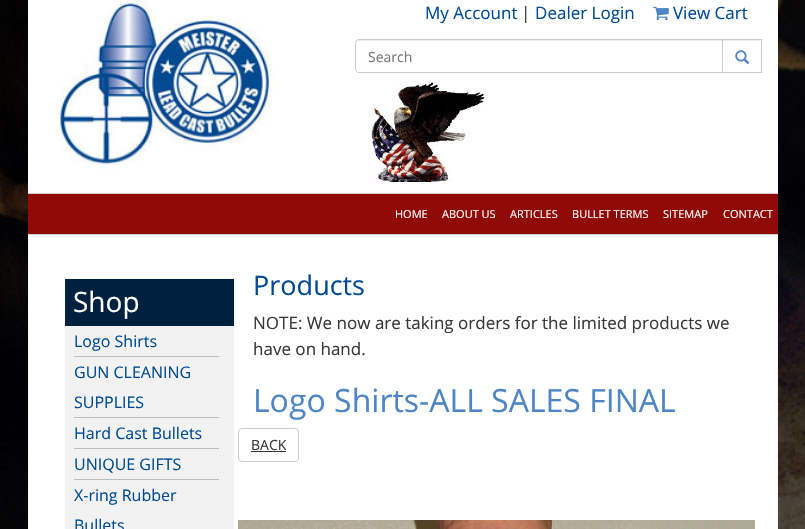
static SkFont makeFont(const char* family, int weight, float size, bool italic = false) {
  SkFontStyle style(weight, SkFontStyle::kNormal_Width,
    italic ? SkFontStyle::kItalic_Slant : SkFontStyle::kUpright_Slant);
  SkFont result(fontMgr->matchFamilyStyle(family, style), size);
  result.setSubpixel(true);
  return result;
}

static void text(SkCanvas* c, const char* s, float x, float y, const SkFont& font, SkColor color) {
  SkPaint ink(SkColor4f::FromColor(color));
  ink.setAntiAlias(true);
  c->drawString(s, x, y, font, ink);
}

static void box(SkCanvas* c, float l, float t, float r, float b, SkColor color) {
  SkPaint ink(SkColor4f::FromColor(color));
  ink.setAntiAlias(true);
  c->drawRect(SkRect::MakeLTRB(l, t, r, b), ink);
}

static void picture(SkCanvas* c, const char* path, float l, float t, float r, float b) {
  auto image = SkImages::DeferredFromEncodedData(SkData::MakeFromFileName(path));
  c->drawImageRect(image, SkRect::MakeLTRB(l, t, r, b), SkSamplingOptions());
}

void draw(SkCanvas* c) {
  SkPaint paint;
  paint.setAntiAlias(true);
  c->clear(0xffffffff);
  picture(c, "img_01.png", 0, 0, 805, 529);
  box(c, 28, 0, 778, 193, 0xffffffff);
  picture(c, "img_02.png", 56, 0, 276, 169);
  SkFont face1 = makeFont("Open Sans", 400, 17);
  text(c, "My Account", 425, 19, face1, 0xff004b93);
  text(c, "|", 521, 19, face1, 0xff383838);
  text(c, "Dealer Login", 535, 19, face1, 0xff004b93);
  picture(c, "img_03.png", 653, 6, 669, 21);
  text(c, "View Cart", 673, 19, face1, 0xff004b93);
  paint.setColor(0xffececec);
  c->drawPath(SkPathBuilder().moveTo(359, 41).lineTo(722, 41).lineTo(722, 40).lineTo(359, 40).cubicTo(357, 40, 356, 41, 356, 43).lineTo(356, 44).cubicTo(356, 42, 357, 41, 359, 41).close().detach(), paint);
  paint.setStyle(SkPaint::kStroke_Style);
  paint.setStrokeWidth(1);
  paint.setColor(0xffcccccc);
  c->drawPath(SkPathBuilder().moveTo(359, 39.5f).lineTo(722.5f, 39.5f).lineTo(722.5f, 72.5f).lineTo(359, 72.5f).cubicTo(357, 72.5f, 355.5f, 71, 355.5f, 69).lineTo(355.5f, 43).cubicTo(355.5f, 41, 357, 39.5f, 359, 39.5f).close().detach(), paint);
  SkFont face2 = makeFont("Open Sans", 400, 14);
  text(c, "Search", 368, 62, face2, 0xff777777);
  box(c, 723, 40, 761, 41, 0xffececec);
  c->drawRect(SkRect::MakeLTRB(722.5f, 39.5f, 761.5f, 72.5f), paint);
  picture(c, "img_04.png", 735, 50, 750, 65);
  picture(c, "img_05.png", 370, 82, 485, 182);
  box(c, 28, 194, 778, 234, 0xff900b08);
  box(c, 28, 193, 778, 194, 0xffd4d0d0);
  box(c, 28, 234, 778, 235, 0xffd4d0d0);
  SkFont face3 = makeFont("Open Sans", 400, 11);
  text(c, "HOME", 395, 218, face3, 0xffffffff);
  text(c, "ABOUT US", 442, 218, face3, 0xffffffff);
  text(c, "ARTICLES", 510, 218, face3, 0xffffffff);
  text(c, "BULLET TERMS", 572, 218, face3, 0xffffffff);
  text(c, "SITEMAP", 663, 218, face3, 0xffffffff);
  text(c, "CONTACT", 723, 218, face3, 0xffffffff);
  paint.setStyle(SkPaint::kFill_Style);
  paint.setColor(0xffffffff);
  c->drawRect(SkRect::MakeLTRB(28.5f, 235.5f, 777.5f, 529.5f), paint);
  paint.setStyle(SkPaint::kStroke_Style);
  paint.setColor(0xfff6f6f6);
  c->drawRect(SkRect::MakeLTRB(28.5f, 235.5f, 777.5f, 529.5f), paint);
  box(c, 65, 279, 234, 326, 0xff00203f);
  SkFont face4 = makeFont("Open Sans", 400, 28);
  text(c, "Shop", 73, 312, face4, 0xffffffff);
  box(c, 65, 326, 234, 529, 0xfff2f2f2);
  box(c, 74, 356, 219, 357, 0xffbabbbc);
  SkFont face5 = makeFont("Open Sans", 400, 16);
  text(c, "Logo Shirts", 74, 347, face5, 0xff004b93);
  box(c, 74, 417, 219, 418, 0xffbabbbc);
  text(c, "GUN CLEANING", 74, 378, face5, 0xff004b93);
  text(c, "SUPPLIES", 74, 408, face5, 0xff004b93);
  box(c, 74, 448, 219, 449, 0xffbabbbc);
  text(c, "Hard Cast Bullets", 74, 439, face5, 0xff004b93);
  box(c, 74, 479, 219, 480, 0xffbabbbc);
  text(c, "UNIQUE GIFTS", 74, 470, face5, 0xff004b93);
  text(c, "X-ring Rubber", 74, 501, face5, 0xff004b93);
  text(c, "Bullets", 74, 531, face5, 0xff004b93);
  SkFont face6 = makeFont("Open Sans", 400, 27);
  text(c, "Products", 253, 295, face6, 0xff004b93);
  text(c, "NOTE: We now are taking orders for the limited products we", 253, 329, face1, 0xff383838);
  text(c, "have on hand.", 253, 355, face1, 0xff383838);
  SkFont face7 = makeFont("Open Sans", 400, 32);
  text(c, "Logo Shirts-ALL SALES FINAL", 253, 412, face7, 0xff4d85c5);
  paint.setColor(0xffcccccc);
  c->drawRoundRect(SkRect::MakeLTRB(238.5f, 428.5f, 298.5f, 461.5f), 3.5f, 3.5f, paint);
  text(c, "BACK", 251, 450, face2, 0xff383838);
  box(c, 251, 451, 286, 452, 0xff333333);
  picture(c, "img_06.png", 238, 520, 755, 529);
}
